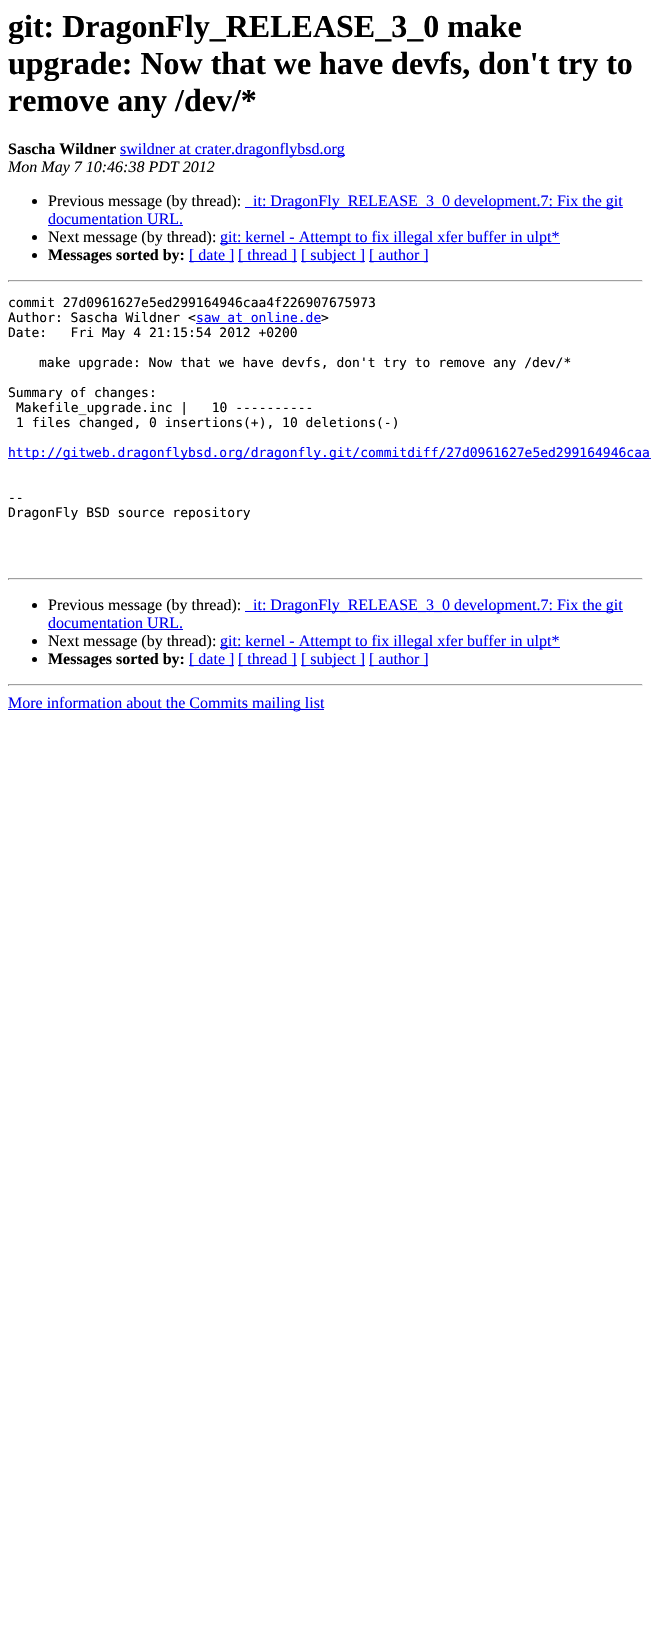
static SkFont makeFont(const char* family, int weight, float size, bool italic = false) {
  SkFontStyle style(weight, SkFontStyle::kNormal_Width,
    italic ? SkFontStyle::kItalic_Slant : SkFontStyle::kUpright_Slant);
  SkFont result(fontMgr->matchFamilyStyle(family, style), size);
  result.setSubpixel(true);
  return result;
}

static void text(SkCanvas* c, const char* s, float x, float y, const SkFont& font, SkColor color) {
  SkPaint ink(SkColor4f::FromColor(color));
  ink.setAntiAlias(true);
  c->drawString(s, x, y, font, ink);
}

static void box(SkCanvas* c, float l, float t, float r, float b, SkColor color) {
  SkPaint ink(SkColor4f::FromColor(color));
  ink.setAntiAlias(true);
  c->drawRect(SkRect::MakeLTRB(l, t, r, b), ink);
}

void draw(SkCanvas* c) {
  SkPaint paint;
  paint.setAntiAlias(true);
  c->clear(0xffffffff);
  SkFont face1 = makeFont("Liberation Serif", 700, 32);
  text(c, "git: DragonFly_RELEASE_3_0 make", 8, 37, face1, 0xff000000);
  text(c, "upgrade: Now that we have devfs, don't try to", 8, 74, face1, 0xff000000);
  text(c, "remove any /dev/*", 8, 111, face1, 0xff000000);
  SkFont face2 = makeFont("Liberation Serif", 700, 16);
  text(c, "Sascha Wildner", 8, 154, face2, 0xff000000);
  box(c, 120, 155, 345, 156, 0xff0000ee);
  SkFont face3 = makeFont("Liberation Serif", 400, 16);
  text(c, "swildner at crater.dragonflybsd.org", 120, 154, face3, 0xff0000ee);
  SkFont face4 = makeFont("Liberation Serif", 400, 16, true);
  text(c, "Mon May 7 10:46:38 PDT 2012", 8, 172, face4, 0xff000000);
  paint.setColor(0xff000000);
  c->drawCircle(34.5f, 201.5f, 2.5f, paint);
  text(c, "Previous message (by thread):", 48, 206, face3, 0xff000000);
  box(c, 245, 207, 623, 208, 0xff0000ee);
  text(c, "it: DragonFly_RELEASE_3_0 development.7: Fix the git", 253, 206, face3, 0xff0000ee);
  text(c, "documentation URL.", 48, 224, face3, 0xff0000ee);
  box(c, 48, 225, 183, 226, 0xff0000ee);
  c->drawCircle(34.5f, 237.5f, 2.5f, paint);
  text(c, "Next message (by thread):", 48, 242, face3, 0xff000000);
  box(c, 220, 243, 560, 244, 0xff0000ee);
  text(c, "git: kernel - Attempt to fix illegal xfer buffer in ulpt*", 220, 242, face3, 0xff0000ee);
  c->drawCircle(34.5f, 255.5f, 2.5f, paint);
  text(c, "Messages sorted by:", 48, 260, face2, 0xff000000);
  box(c, 189, 261, 234, 262, 0xff0000ee);
  text(c, "[ date ]", 189, 260, face3, 0xff0000ee);
  box(c, 238, 261, 297, 262, 0xff0000ee);
  text(c, "[ thread ]", 238, 260, face3, 0xff0000ee);
  box(c, 301, 261, 365, 262, 0xff0000ee);
  text(c, "[ subject ]", 301, 260, face3, 0xff0000ee);
  box(c, 369, 261, 428, 262, 0xff0000ee);
  text(c, "[ author ]", 369, 260, face3, 0xff0000ee);
  box(c, 8, 280, 643, 281, 0xff9f9f9f);
  box(c, 642, 280, 643, 282, 0xffeeeeee);
  box(c, 8, 281, 643, 282, 0xffeeeeee);
  box(c, 8, 280, 9, 282, 0xff9f9f9f);
  SkFont face5 = makeFont("DejaVu Sans Mono", 400, 13);
  text(c, "commit 27d0961627e5ed299164946caa4f226907675973", 8, 307, face5, 0xff000000);
  text(c, "Author: Sascha Wildner <", 8, 322, face5, 0xff000000);
  text(c, "saw at online.de", 196, 322, face5, 0xff0000ee);
  box(c, 196, 323, 321, 324, 0xff0000ee);
  text(c, ">", 321, 322, face5, 0xff000000);
  text(c, "Date:   Fri May 4 21:15:54 2012 +0200", 8, 337, face5, 0xff000000);
  text(c, "make upgrade: Now that we have devfs, don't try to remove any /dev/*", 39, 367, face5, 0xff000000);
  text(c, "Summary of changes:", 8, 397, face5, 0xff000000);
  text(c, "Makefile_upgrade.inc |   10 ----------", 16, 412, face5, 0xff000000);
  text(c, "1 files changed, 0 insertions(+), 10 deletions(-)", 16, 427, face5, 0xff000000);
  box(c, 8, 458, 651, 459, 0xff0000ee);
  text(c, "http://gitweb.dragonflybsd.org/dragonfly.git/commitdiff/27d0961627e5ed299164946caa", 8, 457, face5, 0xff0000ee);
  text(c, "--", 8, 502, face5, 0xff000000);
  text(c, "DragonFly BSD source repository", 8, 517, face5, 0xff000000);
  box(c, 8, 578, 643, 579, 0xff9f9f9f);
  box(c, 642, 578, 643, 580, 0xffeeeeee);
  box(c, 8, 579, 643, 580, 0xffeeeeee);
  box(c, 8, 578, 9, 580, 0xff9f9f9f);
  c->drawCircle(34.5f, 605.5f, 2.5f, paint);
  text(c, "Previous message (by thread):", 48, 610, face3, 0xff000000);
  box(c, 245, 611, 623, 612, 0xff0000ee);
  text(c, "it: DragonFly_RELEASE_3_0 development.7: Fix the git", 253, 610, face3, 0xff0000ee);
  text(c, "documentation URL.", 48, 628, face3, 0xff0000ee);
  box(c, 48, 629, 183, 630, 0xff0000ee);
  c->drawCircle(34.5f, 641.5f, 2.5f, paint);
  text(c, "Next message (by thread):", 48, 646, face3, 0xff000000);
  box(c, 220, 647, 560, 648, 0xff0000ee);
  text(c, "git: kernel - Attempt to fix illegal xfer buffer in ulpt*", 220, 646, face3, 0xff0000ee);
  c->drawCircle(34.5f, 659.5f, 2.5f, paint);
  text(c, "Messages sorted by:", 48, 664, face2, 0xff000000);
  box(c, 189, 665, 234, 666, 0xff0000ee);
  text(c, "[ date ]", 189, 664, face3, 0xff0000ee);
  box(c, 238, 665, 297, 666, 0xff0000ee);
  text(c, "[ thread ]", 238, 664, face3, 0xff0000ee);
  box(c, 301, 665, 365, 666, 0xff0000ee);
  text(c, "[ subject ]", 301, 664, face3, 0xff0000ee);
  box(c, 369, 665, 428, 666, 0xff0000ee);
  text(c, "[ author ]", 369, 664, face3, 0xff0000ee);
  box(c, 8, 684, 643, 685, 0xff9f9f9f);
  box(c, 642, 684, 643, 686, 0xffeeeeee);
  box(c, 8, 685, 643, 686, 0xffeeeeee);
  box(c, 8, 684, 9, 686, 0xff9f9f9f);
  box(c, 8, 709, 324, 710, 0xff0000ee);
  text(c, "More information about the Commits mailing list", 8, 708, face3, 0xff0000ee);
}
